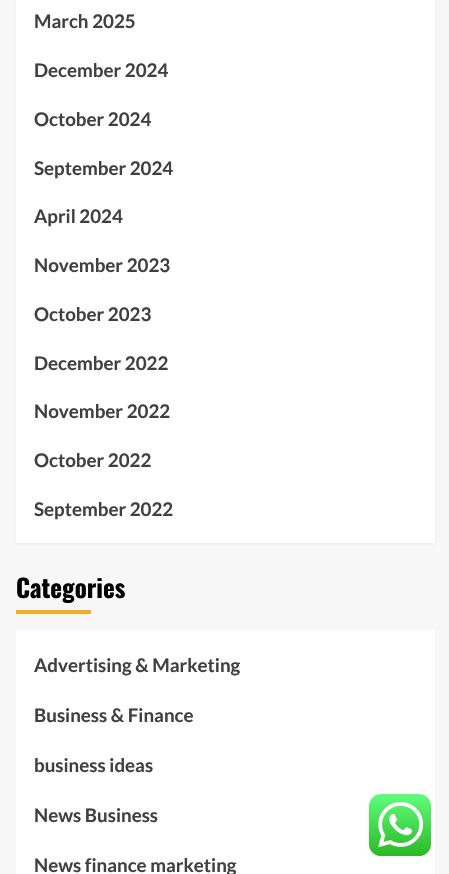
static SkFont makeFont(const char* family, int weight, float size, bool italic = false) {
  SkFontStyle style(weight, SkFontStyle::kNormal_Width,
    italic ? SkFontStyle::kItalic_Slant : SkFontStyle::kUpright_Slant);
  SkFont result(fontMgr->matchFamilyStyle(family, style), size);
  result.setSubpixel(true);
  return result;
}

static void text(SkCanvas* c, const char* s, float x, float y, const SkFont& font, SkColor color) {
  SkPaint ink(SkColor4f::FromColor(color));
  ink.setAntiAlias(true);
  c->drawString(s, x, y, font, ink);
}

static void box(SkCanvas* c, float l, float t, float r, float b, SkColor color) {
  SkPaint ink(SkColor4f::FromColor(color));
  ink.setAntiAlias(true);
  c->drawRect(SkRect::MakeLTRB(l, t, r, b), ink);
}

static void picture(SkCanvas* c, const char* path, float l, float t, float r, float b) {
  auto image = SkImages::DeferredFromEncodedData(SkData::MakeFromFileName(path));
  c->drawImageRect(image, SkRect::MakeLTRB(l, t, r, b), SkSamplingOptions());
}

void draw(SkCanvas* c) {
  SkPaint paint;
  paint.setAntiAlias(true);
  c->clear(0xfff7f7f7);
  paint.setColor(0x0d000000);
  paint.setMaskFilter(SkMaskFilter::MakeBlur(kNormal_SkBlurStyle, 1));
  c->drawRect(SkRect::MakeLTRB(16, -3, 435, 544), paint);
  paint.setMaskFilter(nullptr);
  box(c, 16, 0, 435, 543, 0xffffffff);
  SkFont face1 = makeFont("Lato", 700, 18.75f);
  text(c, "March 2025", 34, 28, face1, 0xff404040);
  text(c, "December 2024", 34, 77, face1, 0xff404040);
  text(c, "October 2024", 34, 126, face1, 0xff404040);
  text(c, "September 2024", 34, 175, face1, 0xff404040);
  text(c, "April 2024", 34, 223, face1, 0xff404040);
  text(c, "November 2023", 34, 272, face1, 0xff404040);
  text(c, "October 2023", 34, 321, face1, 0xff404040);
  text(c, "December 2022", 34, 370, face1, 0xff404040);
  text(c, "November 2022", 34, 418, face1, 0xff404040);
  text(c, "October 2022", 34, 467, face1, 0xff404040);
  text(c, "September 2022", 34, 516, face1, 0xff404040);
  SkFont face2 = makeFont("Oswald", 700, 25);
  text(c, "Categories", 16, 598, face2, 0xff000000);
  box(c, 16, 610, 91, 614, 0xfff3ad29);
  box(c, 16, 630, 435, 874, 0xffffffff);
  text(c, "Advertising & Marketing", 34, 672, face1, 0xff404040);
  text(c, "Business & Finance", 34, 722, face1, 0xff404040);
  text(c, "business ideas", 34, 772, face1, 0xff404040);
  text(c, "News Business", 34, 822, face1, 0xff404040);
  text(c, "News finance marketing", 34, 872, face1, 0xff404040);
  picture(c, "img_01.png", 369, 794, 431, 856);
}
